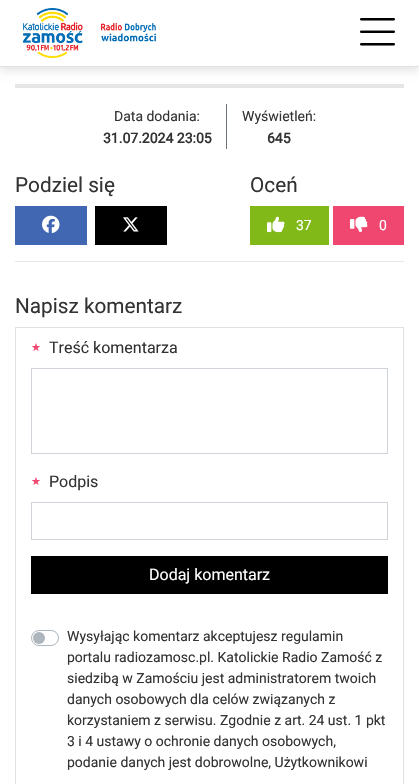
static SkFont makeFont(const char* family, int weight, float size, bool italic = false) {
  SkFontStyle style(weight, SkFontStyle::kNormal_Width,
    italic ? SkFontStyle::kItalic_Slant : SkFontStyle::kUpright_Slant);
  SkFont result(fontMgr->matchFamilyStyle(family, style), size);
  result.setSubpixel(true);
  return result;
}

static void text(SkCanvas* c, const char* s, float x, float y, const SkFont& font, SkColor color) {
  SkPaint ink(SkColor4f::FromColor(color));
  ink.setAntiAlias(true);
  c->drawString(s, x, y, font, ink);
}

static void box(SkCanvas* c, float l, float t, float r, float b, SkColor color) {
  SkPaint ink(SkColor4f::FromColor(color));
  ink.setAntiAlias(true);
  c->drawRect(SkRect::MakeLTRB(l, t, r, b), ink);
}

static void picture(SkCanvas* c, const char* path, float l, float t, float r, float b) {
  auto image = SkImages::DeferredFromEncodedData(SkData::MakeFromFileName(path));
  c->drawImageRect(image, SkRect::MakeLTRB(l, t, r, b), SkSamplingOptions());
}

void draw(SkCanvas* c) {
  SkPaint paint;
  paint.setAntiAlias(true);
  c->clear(0xffffffff);
  paint.setColor(0x1a000000);
  paint.setMaskFilter(SkMaskFilter::MakeBlur(kNormal_SkBlurStyle, 4));
  c->drawRect(SkRect::MakeLTRB(0, 4, 419, 71), paint);
  paint.setMaskFilter(nullptr);
  box(c, 0, 0, 419, 66, 0xffffffff);
  box(c, 0, 66, 419, 67, 0xffdee2e6);
  picture(c, "img_01.png", 23, 8, 156, 58);
  picture(c, "img_02.png", 360, 18, 395, 46);
  box(c, 15, 84, 404, 88, 0xffe6e6e6);
  SkFont face1 = makeFont("Roboto", 400, 14);
  text(c, "Data dodania:", 114, 121, face1, 0xff333333);
  box(c, 226, 104, 227, 149, 0xff6c757d);
  SkFont face2 = makeFont("Roboto", 700, 14);
  text(c, "31.07.2024 23:05", 103, 143, face2, 0xff333333);
  text(c, "Wyświetleń:", 242, 121, face1, 0xff333333);
  text(c, "645", 267, 143, face2, 0xff333333);
  SkFont face3 = makeFont("Roboto", 400, 20.75f);
  text(c, "Podziel się", 15, 192, face3, 0xff333333);
  box(c, 15, 206, 87, 245, 0xff4267b2);
  picture(c, "img_03.png", 42, 215, 60, 233);
  box(c, 95, 206, 167, 245, 0xff000000);
  picture(c, "img_04.png", 123, 217, 139, 232);
  text(c, "Oceń", 250, 192, face3, 0xff333333);
  box(c, 250, 206, 329, 245, 0xff80b918);
  picture(c, "img_05.png", 267, 216, 285, 233);
  text(c, "37", 296, 230, face1, 0xffffffff);
  box(c, 333, 206, 404, 245, 0xffef476f);
  picture(c, "img_06.png", 350, 216, 368, 233);
  text(c, "0", 379, 230, face1, 0xffffffff);
  box(c, 15, 261, 404, 262, 0xffe6e6e6);
  text(c, "Napisz komentarz", 15, 313, face3, 0xff333333);
  paint.setStyle(SkPaint::kStroke_Style);
  paint.setStrokeWidth(1);
  paint.setColor(0xffdee2e6);
  c->drawRect(SkRect::MakeLTRB(15.5f, 327.5f, 403.5f, 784.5f), paint);
  SkFont face4 = makeFont("DejaVu Sans", 400, 11);
  text(c, "★", 31, 351, face4, 0xffef476f);
  SkFont face5 = makeFont("Roboto", 400, 16);
  text(c, "Treść komentarza", 49, 353, face5, 0xff333333);
  paint.setColor(0xffced4da);
  c->drawRect(SkRect::MakeLTRB(31.5f, 368.5f, 387.5f, 453.5f), paint);
  text(c, "★", 31, 485, face4, 0xffef476f);
  text(c, "Podpis", 49, 487, face5, 0xff333333);
  c->drawRect(SkRect::MakeLTRB(31.5f, 502.5f, 387.5f, 539.5f), paint);
  box(c, 31, 556, 388, 594, 0xff000000);
  text(c, "Dodaj komentarz", 149, 580, face5, 0xffffffff);
  paint.setColor(0xffadb5bd);
  c->drawRoundRect(SkRect::MakeLTRB(31.5f, 630.5f, 58.5f, 645.5f), 7.5f, 7.5f, paint);
  text(c, "Wysyłając komentarz akceptujesz regulamin", 67, 641, face1, 0xff333333);
  paint.setStyle(SkPaint::kFill_Style);
  c->drawCircle(39, 638, 6, paint);
  text(c, "portalu radiozamosc.pl. Katolickie Radio Zamość z", 67, 662, face1, 0xff333333);
  text(c, "siedzibą w Zamościu jest administratorem twoich", 67, 683, face1, 0xff333333);
  text(c, "danych osobowych dla celów związanych z", 67, 704, face1, 0xff333333);
  text(c, "korzystaniem z serwisu. Zgodnie z art. 24 ust. 1 pkt", 67, 725, face1, 0xff333333);
  text(c, "3 i 4 ustawy o ochronie danych osobowych,", 67, 746, face1, 0xff333333);
  text(c, "podanie danych jest dobrowolne, Użytkownikowi", 67, 767, face1, 0xff333333);
}
